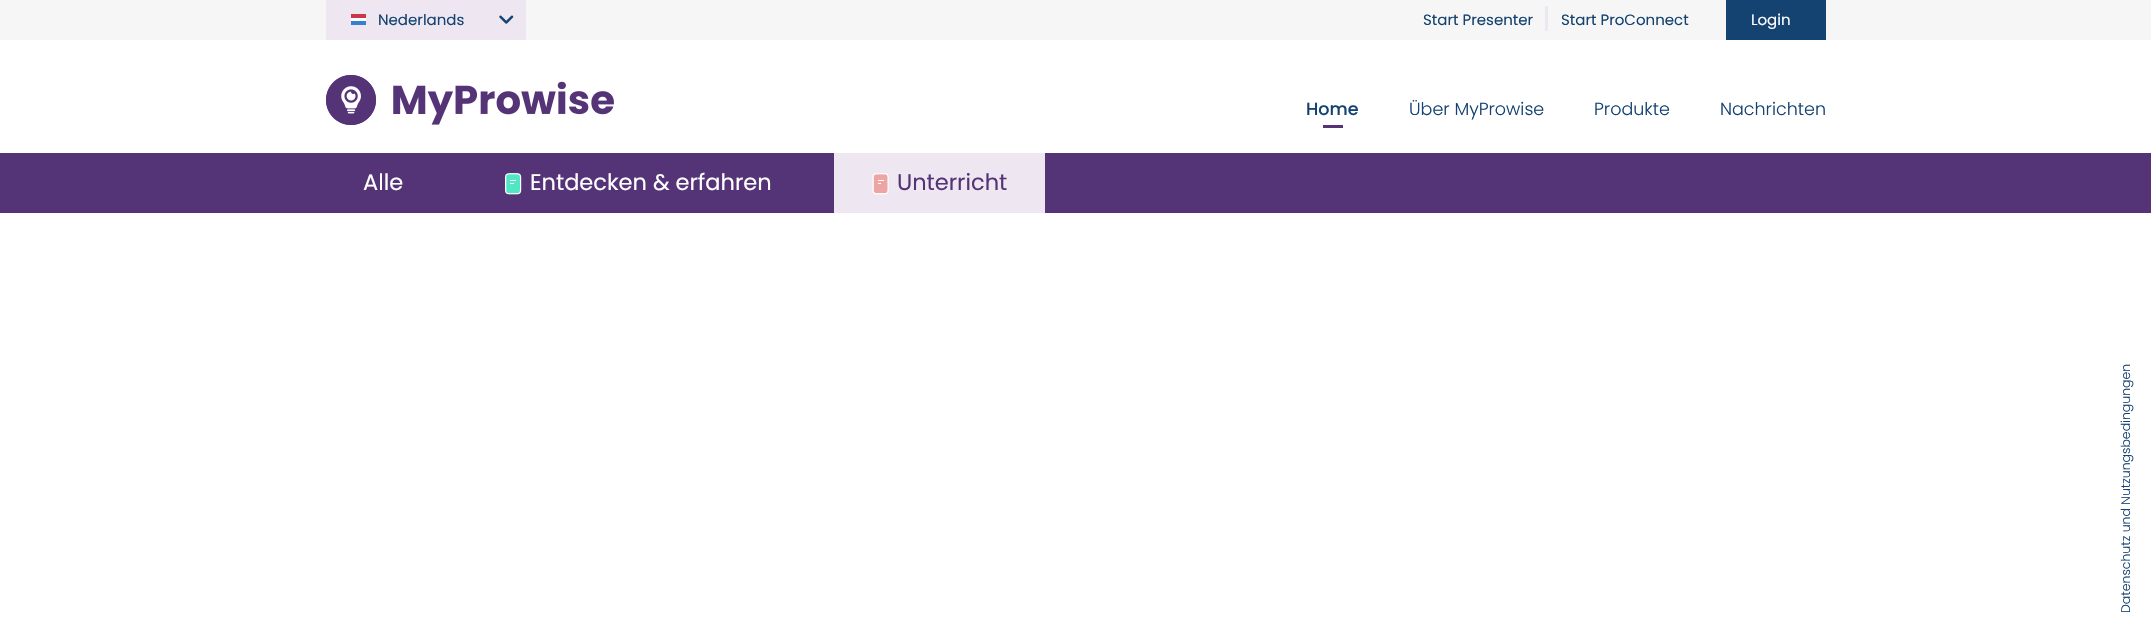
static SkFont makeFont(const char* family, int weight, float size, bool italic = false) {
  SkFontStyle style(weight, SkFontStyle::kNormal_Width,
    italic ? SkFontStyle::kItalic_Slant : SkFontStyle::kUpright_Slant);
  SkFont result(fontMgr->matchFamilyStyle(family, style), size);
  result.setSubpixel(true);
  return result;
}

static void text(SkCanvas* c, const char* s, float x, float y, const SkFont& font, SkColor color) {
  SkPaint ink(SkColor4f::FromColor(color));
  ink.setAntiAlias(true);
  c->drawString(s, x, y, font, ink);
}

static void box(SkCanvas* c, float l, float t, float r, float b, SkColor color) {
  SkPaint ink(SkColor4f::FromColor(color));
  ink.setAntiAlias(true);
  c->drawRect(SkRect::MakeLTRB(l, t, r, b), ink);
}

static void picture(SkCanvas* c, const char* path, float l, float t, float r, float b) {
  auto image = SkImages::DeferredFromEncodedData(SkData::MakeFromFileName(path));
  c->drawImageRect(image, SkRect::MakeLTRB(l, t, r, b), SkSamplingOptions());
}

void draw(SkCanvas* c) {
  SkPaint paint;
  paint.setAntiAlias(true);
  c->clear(0xffffffff);
  box(c, 0, 0, 2151, 40, 0xfff6f6f6);
  box(c, 326, 0, 526, 40, 0xffeee6f0);
  box(c, 351, 14, 366, 18, 0xffc93846);
  box(c, 351, 18, 366, 21, 0xffffffff);
  box(c, 351, 21, 366, 25, 0xff3581cc);
  SkFont face1 = makeFont("Poppins", 400, 15);
  text(c, "Nederlands", 378, 25, face1, 0xff154371);
  picture(c, "img_01.png", 499, 15, 514, 24);
  text(c, "Start Presenter", 1423, 25, face1, 0xff154371);
  box(c, 1545, 6, 1548, 31, 0xffeee6f0);
  text(c, "Start ProConnect", 1561, 25, face1, 0xff154371);
  box(c, 1726, 0, 1826, 40, 0xff154371);
  text(c, "Login", 1751, 25, face1, 0xffffffff);
  picture(c, "img_02.png", 326, 75, 614, 125);
  SkFont face2 = makeFont("Poppins", 500, 17.5f);
  text(c, "Home", 1306, 115, face2, 0xff154371);
  box(c, 1323, 125, 1343, 128, 0xff553377);
  SkFont face3 = makeFont("Poppins", 300, 17.5f);
  text(c, "Über MyProwise", 1409, 115, face3, 0xff154371);
  text(c, "Produkte", 1594, 115, face3, 0xff154371);
  text(c, "Nachrichten", 1720, 115, face3, 0xff154371);
  box(c, 0, 153, 2151, 213, 0xff553377);
  SkFont face4 = makeFont("Poppins", 400, 22.5f);
  text(c, "Alle", 363, 190, face4, 0xffffffff);
  picture(c, "img_03.png", 505, 173, 522, 195);
  text(c, "Entdecken & erfahren", 530, 190, face4, 0xffffffff);
  box(c, 834, 153, 1045, 213, 0xffeee6f0);
  picture(c, "img_04.png", 872, 173, 889, 195);
  text(c, "Unterricht", 897, 190, face4, 0xff553377);
  SkFont face5 = makeFont("Poppins", 300, 12.5f);
  c->save();
  c->rotate(-90, 2130, 613);
  text(c, "Datenschutz und Nutzungsbedingungen", 2130, 613, face5, 0xff154371);
  c->restore();
}
